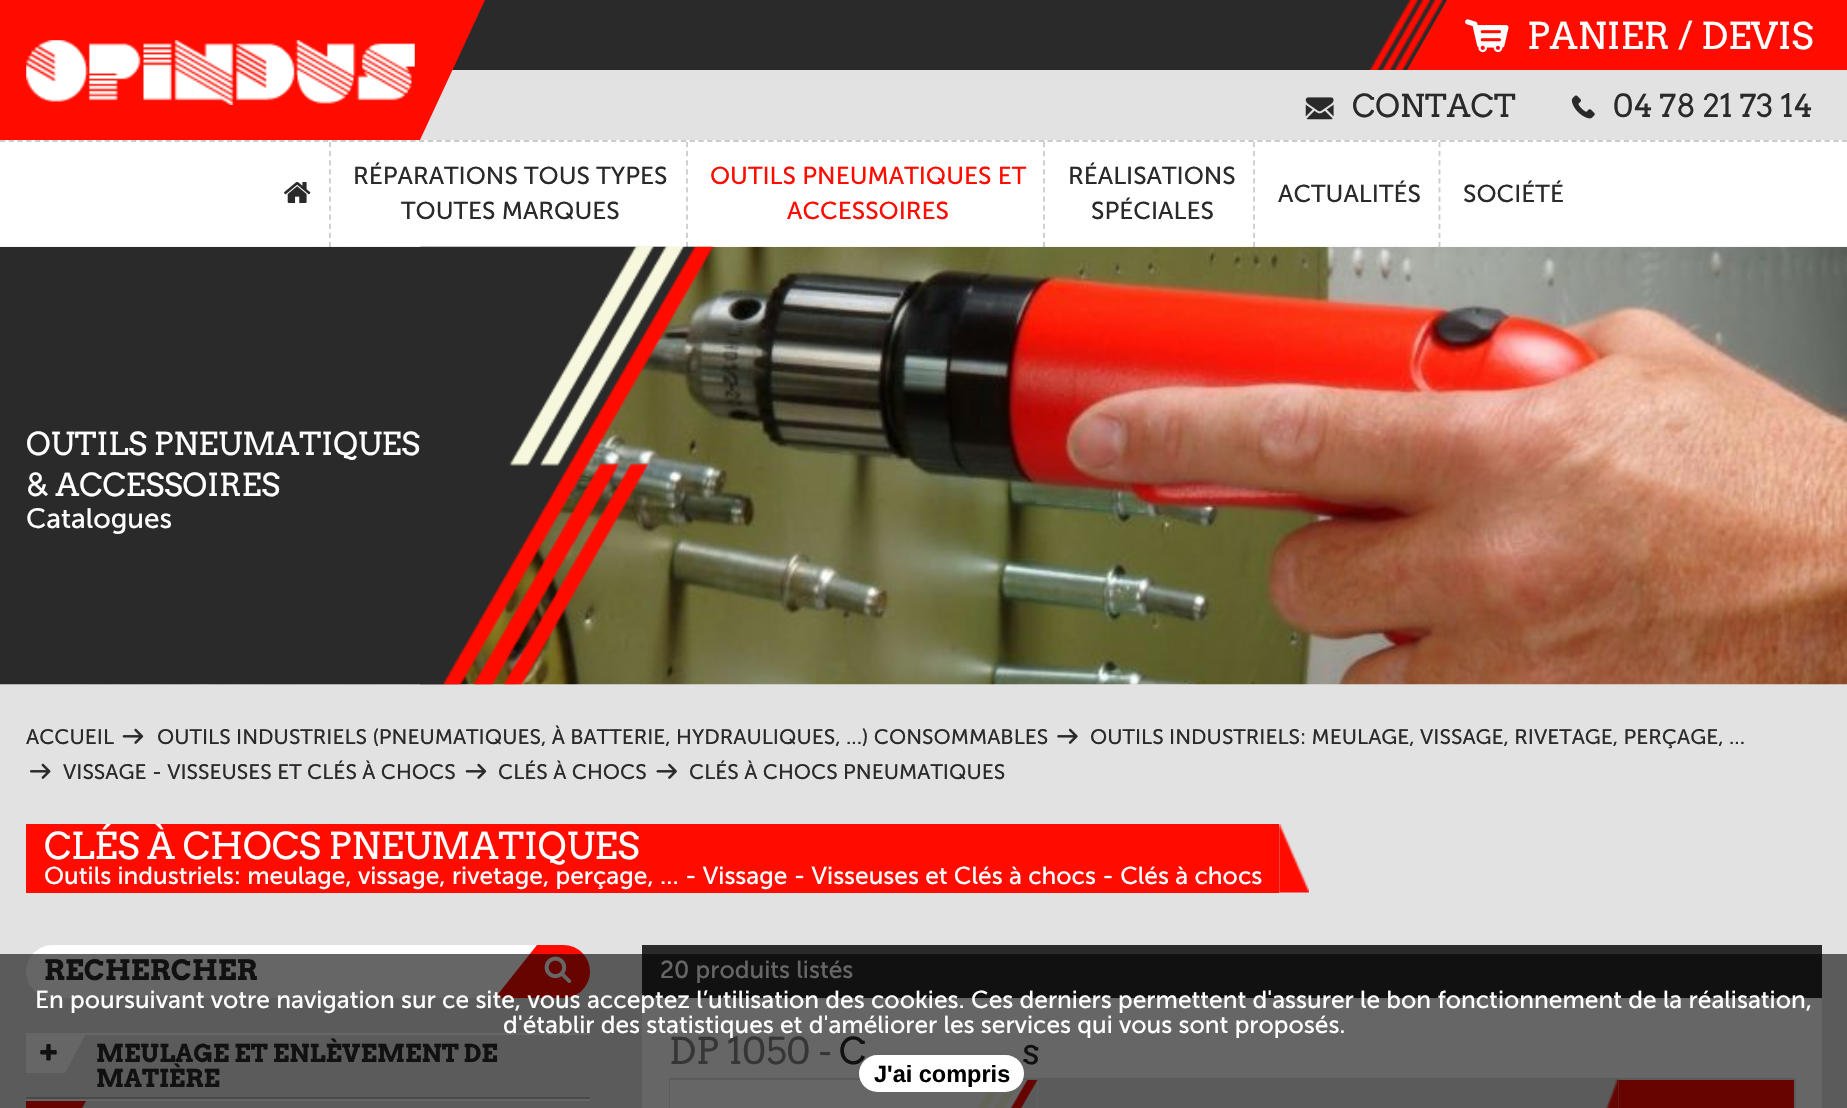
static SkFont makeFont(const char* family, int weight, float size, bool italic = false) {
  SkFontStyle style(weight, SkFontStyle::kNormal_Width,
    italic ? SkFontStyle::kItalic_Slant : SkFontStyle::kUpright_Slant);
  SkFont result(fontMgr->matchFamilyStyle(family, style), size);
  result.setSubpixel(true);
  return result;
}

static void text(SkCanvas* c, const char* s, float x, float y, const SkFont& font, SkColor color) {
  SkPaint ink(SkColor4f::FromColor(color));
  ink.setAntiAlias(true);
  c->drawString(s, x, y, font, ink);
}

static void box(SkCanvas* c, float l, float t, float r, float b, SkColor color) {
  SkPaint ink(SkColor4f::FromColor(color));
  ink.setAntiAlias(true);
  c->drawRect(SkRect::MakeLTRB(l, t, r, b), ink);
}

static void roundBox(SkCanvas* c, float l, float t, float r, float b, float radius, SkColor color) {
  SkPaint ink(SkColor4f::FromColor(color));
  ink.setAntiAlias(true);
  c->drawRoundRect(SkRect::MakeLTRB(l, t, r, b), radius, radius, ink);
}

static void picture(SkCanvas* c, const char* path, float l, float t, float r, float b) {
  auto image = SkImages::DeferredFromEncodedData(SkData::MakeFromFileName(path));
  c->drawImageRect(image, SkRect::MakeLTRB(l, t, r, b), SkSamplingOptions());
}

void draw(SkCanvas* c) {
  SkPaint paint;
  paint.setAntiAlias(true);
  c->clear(0xffe2e2e2);
  box(c, 0, 0, 420, 140, 0xffff0b00);
  picture(c, "img_01.png", 26, 40, 415, 105);
  box(c, 452, 0, 1447, 70, 0xff2a2a2a);
  paint.setColor(0xffff0b00);
  c->drawPath(SkPathBuilder().moveTo(420, 0).lineTo(485, 0).lineTo(420, 140).close().detach(), paint);
  box(c, 1447, 0, 1847, 70, 0xffff0b00);
  picture(c, "img_02.png", 1369, 0, 1444, 70);
  c->drawPath(SkPathBuilder().moveTo(1447, 70).lineTo(1407, 70).lineTo(1447, 0).close().detach(), paint);
  picture(c, "img_03.png", 1465, 19, 1509, 53);
  SkFont face1 = makeFont("Arvo", 400, 36.75f);
  text(c, "PANIER / DEVIS", 1527, 49, face1, 0xffffffff);
  picture(c, "img_04.png", 1305, 97, 1334, 120);
  SkFont face2 = makeFont("Arvo", 400, 31.5f);
  text(c, "CONTACT", 1352, 117, face2, 0xff2a2a2a);
  picture(c, "img_05.png", 1571, 95, 1595, 119);
  text(c, "04 78 21 73 14", 1613, 117, face2, 0xff2a2a2a);
  box(c, 0, 140, 1847, 247, 0xffffffff);
  paint.setStyle(SkPaint::kStroke_Style);
  paint.setStrokeWidth(1.8f);
  paint.setColor(0xffcccccc);
  paint.setPathEffect(SkDashPathEffect::Make({{5.25f, 3.48f}}, 0));
  c->drawPath(SkPathBuilder().moveTo(0, 141).lineTo(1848, 141).detach(), paint);
  paint.setPathEffect(nullptr);
  picture(c, "img_07.png", 0, 246, 1847, 685);
  paint.setColor(0x33000000);
  paint.setPathEffect(SkDashPathEffect::Make({{5.25f, 3.82f}}, 0));
  c->drawPath(SkPathBuilder().moveTo(330, 142).lineTo(330, 247).detach(), paint);
  paint.setPathEffect(nullptr);
  picture(c, "img_06.png", 284, 182, 311, 203);
  picture(c, "img_08.png", 420, 246, 715, 685);
  paint.setPathEffect(SkDashPathEffect::Make({{5.25f, 3.82f}}, 0));
  c->drawPath(SkPathBuilder().moveTo(687, 142).lineTo(687, 247).detach(), paint);
  paint.setPathEffect(nullptr);
  SkFont face3 = makeFont("Museo Sans", 400, 24.5f);
  text(c, "RÉPARATIONS TOUS TYPES", 353, 184, face3, 0xff2a2a2a);
  text(c, "TOUTES MARQUES", 401, 219, face3, 0xff2a2a2a);
  paint.setPathEffect(SkDashPathEffect::Make({{5.25f, 3.82f}}, 0));
  c->drawPath(SkPathBuilder().moveTo(1044, 142).lineTo(1044, 247).detach(), paint);
  paint.setPathEffect(nullptr);
  text(c, "OUTILS PNEUMATIQUES ET", 710, 184, face3, 0xffff0b00);
  text(c, "ACCESSOIRES", 787, 219, face3, 0xffff0b00);
  paint.setPathEffect(SkDashPathEffect::Make({{5.25f, 3.82f}}, 0));
  c->drawPath(SkPathBuilder().moveTo(1254, 142).lineTo(1254, 247).detach(), paint);
  paint.setPathEffect(nullptr);
  text(c, "RÉALISATIONS", 1068, 184, face3, 0xff2a2a2a);
  text(c, "SPÉCIALES", 1091, 219, face3, 0xff2a2a2a);
  paint.setPathEffect(SkDashPathEffect::Make({{5.25f, 3.82f}}, 0));
  c->drawPath(SkPathBuilder().moveTo(1439.5f, 142).lineTo(1439.5f, 247).detach(), paint);
  paint.setPathEffect(nullptr);
  text(c, "ACTUALITÉS", 1278, 202, face3, 0xff2a2a2a);
  text(c, "SOCIÉTÉ", 1463, 202, face3, 0xff2a2a2a);
  box(c, 0, 247, 420, 684, 0xff2a2a2a);
  text(c, "OUTILS PNEUMATIQUES", 26, 455, face2, 0xffffffff);
  text(c, "& ACCESSOIRES", 26, 496, face2, 0xffffffff);
  SkFont face4 = makeFont("Museo Sans", 400, 28);
  text(c, "Catalogues", 26, 528, face4, 0xffffffff);
  SkFont face5 = makeFont("Museo Sans", 400, 21);
  text(c, "ACCUEIL", 26, 744, face5, 0xff2a2a2a);
  picture(c, "img_09.png", 122, 728, 144, 744);
  text(c, "OUTILS INDUSTRIELS (PNEUMATIQUES, À BATTERIE, HYDRAULIQUES, ...) CONSOMMABLES", 157, 744, face5, 0xff2a2a2a);
  picture(c, "img_10.png", 1057, 728, 1078, 744);
  text(c, "OUTILS INDUSTRIELS: MEULAGE, VISSAGE, RIVETAGE, PERÇAGE, ...", 1090, 744, face5, 0xff2a2a2a);
  picture(c, "img_11.png", 30, 763, 51, 779);
  text(c, "VISSAGE - VISSEUSES ET CLÉS À CHOCS", 63, 779, face5, 0xff2a2a2a);
  picture(c, "img_09.png", 465, 763, 487, 779);
  text(c, "CLÉS À CHOCS", 498, 779, face5, 0xff2a2a2a);
  picture(c, "img_12.png", 656, 763, 677, 779);
  text(c, "CLÉS À CHOCS PNEUMATIQUES", 689, 779, face5, 0xff2a2a2a);
  box(c, 26, 824, 1279, 893, 0xffff0b00);
  text(c, "CLÉS À CHOCS PNEUMATIQUES", 44, 859, face1, 0xffffffff);
  picture(c, "img_13.png", 1279, 824, 1309, 893);
  text(c, "Outils industriels: meulage, vissage, rivetage, perçage, ... - Vissage - Visseuses et Clés à chocs - Clés à chocs", 44, 884, face3, 0xffffffff);
  roundBox(c, 26, 945, 590, 998, 26.5f, 0xffffffff);
  SkFont face6 = makeFont("Arvo", 700, 28);
  text(c, "RECHERCHER", 44, 980, face6, 0xff2a2a2a);
  paint.setStyle(SkPaint::kFill_Style);
  paint.setColor(0xffff0b00);
  c->drawPath(SkPathBuilder().moveTo(537, 945).lineTo(563.5f, 945).cubicTo(578, 945, 590, 957, 590, 971.5f).cubicTo(590, 986, 578, 998, 563.5f, 998).lineTo(537, 998).close().detach(), paint);
  c->drawPath(SkPathBuilder().moveTo(537, 998).lineTo(495, 998).lineTo(537, 945).close().detach(), paint);
  picture(c, "img_14.png", 544, 956, 572, 983);
  box(c, 26, 1033, 590, 1035, 0xffffffff);
  box(c, 26, 1097, 590, 1099, 0xffb5b5b5);
  box(c, 26, 1035, 65, 1073, 0xffffffff);
  picture(c, "img_15.png", 40, 1044, 57, 1061);
  paint.setColor(0xffffffff);
  c->drawPath(SkPathBuilder().moveTo(65, 1034).lineTo(86, 1034).lineTo(65, 1073).close().detach(), paint);
  SkFont face7 = makeFont("Arvo", 700, 24.5f);
  text(c, "MEULAGE ET ENLÈVEMENT DE", 96, 1062, face7, 0xff2a2a2a);
  text(c, "MATIÈRE", 96, 1087, face7, 0xff2a2a2a);
  box(c, 26, 1099, 590, 1101, 0xffffffff);
  box(c, 26, 1101, 65, 1108, 0xffff0b00);
  paint.setColor(0xffff0b00);
  c->drawPath(SkPathBuilder().moveTo(65, 1101).lineTo(86, 1101).lineTo(65, 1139).close().detach(), paint);
  box(c, 642, 945, 1822, 998, 0xff2a2a2a);
  text(c, "20 produits listés", 660, 978, face3, 0xffffffff);
  box(c, 642, 998, 1822, 1108, 0xffffffff);
  text(c, "DP 1050 -", 669, 1064, face1, 0xff878787);
  text(c, "C", 839, 1064, face1, 0xff2a2a2a);
  text(c, "s", 1022, 1064, face1, 0xff2a2a2a);
  box(c, 669, 1078, 1796, 1108, 0xffe2e2e2);
  box(c, 670, 1080, 1038, 1108, 0xffffffff);
  picture(c, "img_16.png", 978, 1079, 1038, 1108);
  box(c, 1619, 1080, 1794, 1108, 0xffff0b00);
  picture(c, "img_17.png", 1606, 1079, 1619, 1108);
  box(c, 0, 954, 1847, 1108, 0x99000000);
  text(c, "En poursuivant votre navigation sur ce site, vous acceptez l’utilisation des cookies. Ces derniers permettent d'assurer le bon fonctionnement de la réalisation,", 35, 1008, face3, 0xffffffff);
  text(c, "d'établir des statistiques et d'améliorer les services qui vous sont proposés.", 503, 1033, face3, 0xffffffff);
  roundBox(c, 859, 1055, 1024, 1092, 18.5f, 0xffffffff);
  SkFont face8 = makeFont("Liberation Sans", 700, 23.5f);
  text(c, "J'ai compris", 874, 1082, face8, 0xff000000);
}
